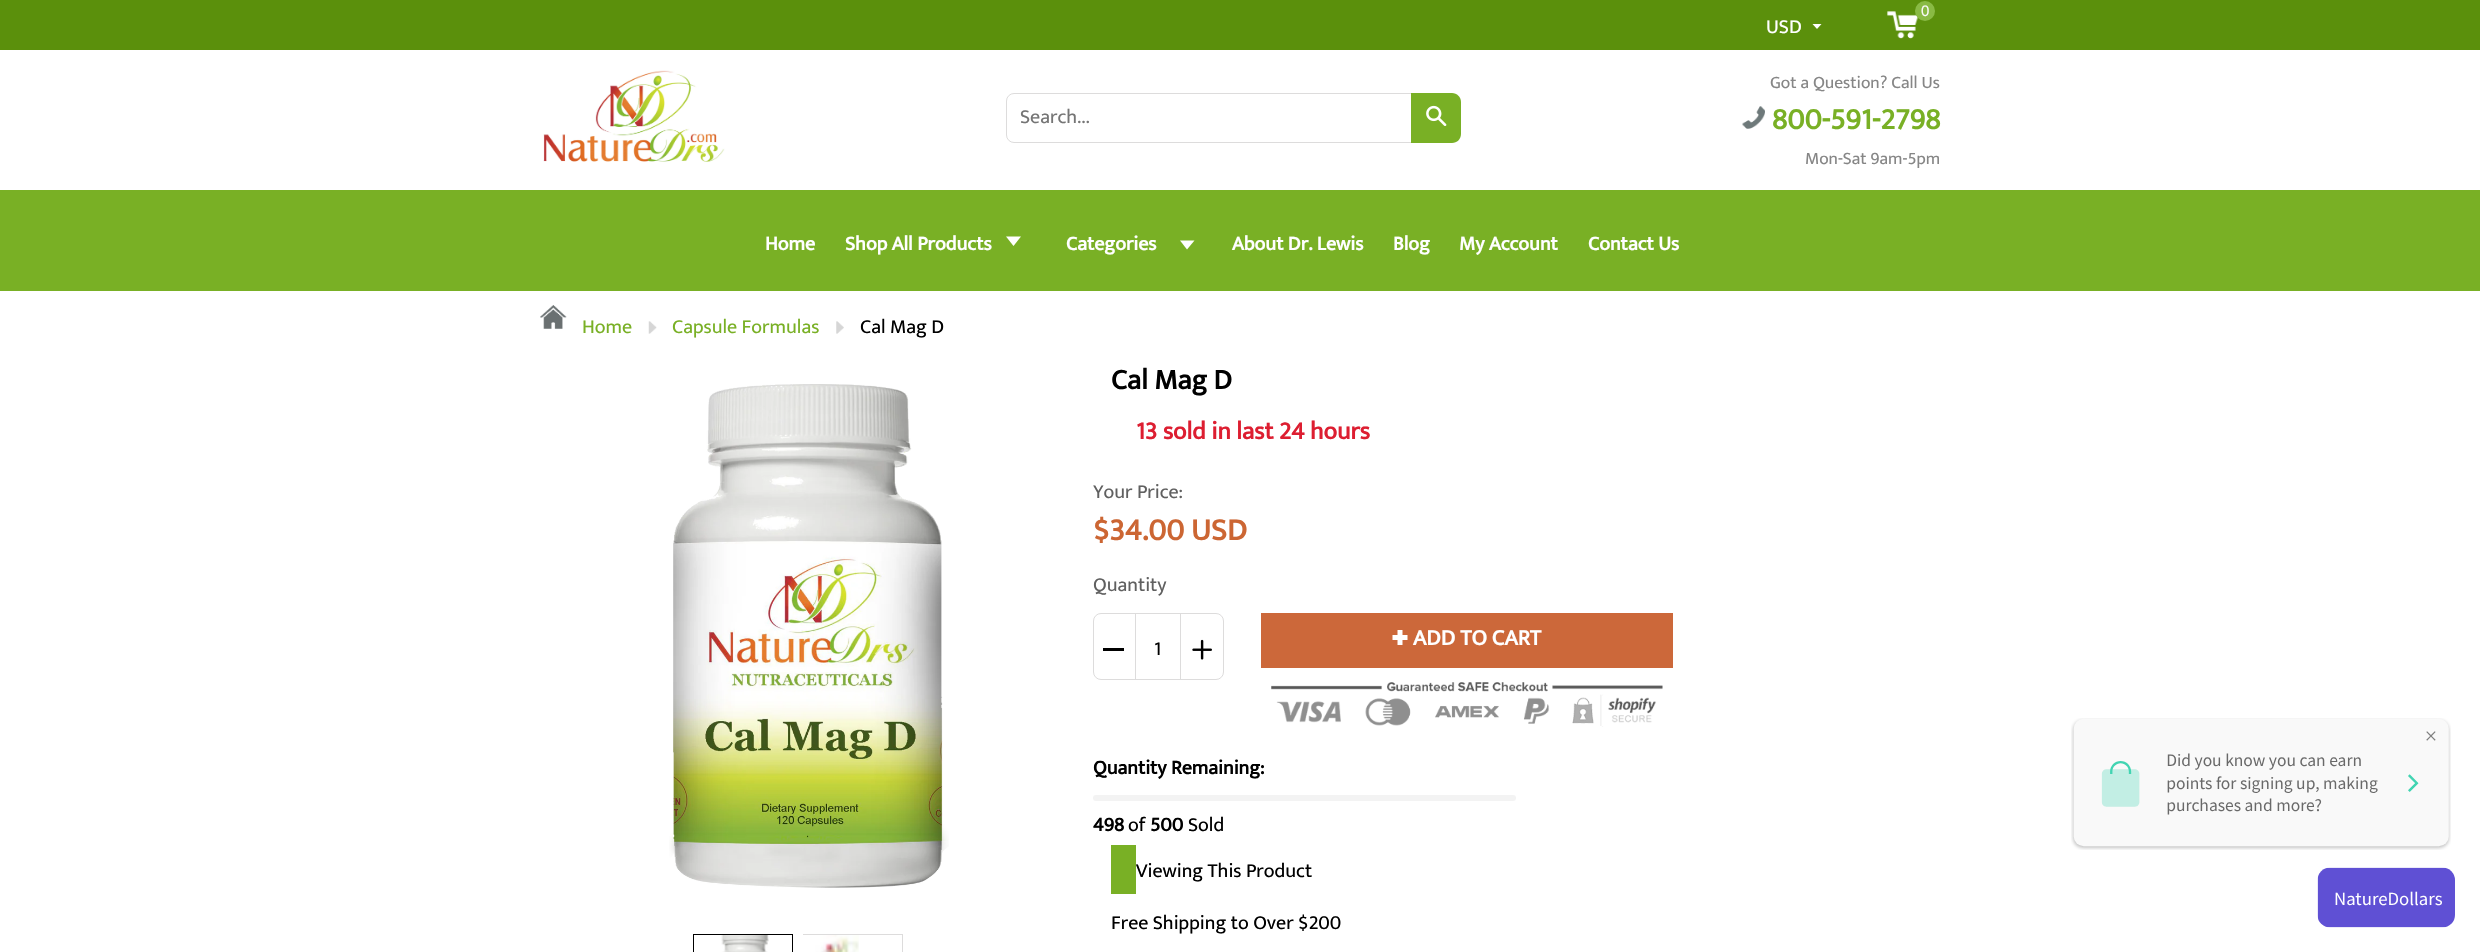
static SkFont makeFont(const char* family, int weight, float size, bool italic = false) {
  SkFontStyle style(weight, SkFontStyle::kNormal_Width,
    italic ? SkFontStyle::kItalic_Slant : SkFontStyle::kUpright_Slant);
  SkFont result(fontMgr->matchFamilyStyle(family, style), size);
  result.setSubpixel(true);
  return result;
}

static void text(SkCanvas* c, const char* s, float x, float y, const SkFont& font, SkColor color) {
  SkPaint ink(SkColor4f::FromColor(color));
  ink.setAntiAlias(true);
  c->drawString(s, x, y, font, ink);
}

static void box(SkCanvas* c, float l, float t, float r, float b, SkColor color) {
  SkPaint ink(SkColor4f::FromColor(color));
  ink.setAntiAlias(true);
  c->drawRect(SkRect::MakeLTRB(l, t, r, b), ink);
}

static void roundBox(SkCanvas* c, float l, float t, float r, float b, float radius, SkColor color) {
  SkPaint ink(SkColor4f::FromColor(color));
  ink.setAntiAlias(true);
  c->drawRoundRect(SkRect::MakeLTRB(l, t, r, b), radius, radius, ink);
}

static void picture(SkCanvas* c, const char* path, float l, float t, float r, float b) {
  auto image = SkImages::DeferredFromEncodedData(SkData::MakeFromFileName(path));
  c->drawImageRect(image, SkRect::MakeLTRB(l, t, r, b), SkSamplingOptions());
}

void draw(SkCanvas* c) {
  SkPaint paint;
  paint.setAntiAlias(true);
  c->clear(0xffffffff);
  box(c, 0, 0, 2480, 50, 0xff5b900c);
  picture(c, "img_01.png", 1887, 11, 1918, 39);
  paint.setColor(0xff89ba44);
  c->drawCircle(1925, 11, 10, paint);
  SkFont face1 = makeFont("Liberation Sans", 400, 15);
  text(c, "0", 1921, 16, face1, 0xfff9f9f9);
  paint.setColor(0xffffffff);
  c->drawPath(SkPathBuilder().moveTo(1812.5f, 24).lineTo(1817, 29).lineTo(1821.5f, 24).close().detach(), paint);
  SkFont face2 = makeFont("Ek Mukta", 400, 20);
  text(c, "USD", 1766, 33, face2, 0xffffffff);
  picture(c, "img_02.png", 543, 70, 725, 162);
  paint.setStyle(SkPaint::kStroke_Style);
  paint.setStrokeWidth(1);
  paint.setColor(0xffdddcdc);
  c->drawRoundRect(SkRect::MakeLTRB(1006.5f, 93.5f, 1423.5f, 142.5f), 7.5f, 7.5f, paint);
  text(c, "Search...", 1020, 123, face2, 0xff757575);
  paint.setStyle(SkPaint::kFill_Style);
  paint.setColor(0xff79b025);
  c->drawPath(SkPathBuilder().moveTo(1411, 93).lineTo(1452, 93).cubicTo(1457, 93, 1461, 97, 1461, 102).lineTo(1461, 134).cubicTo(1461, 139, 1457, 143, 1452, 143).lineTo(1411, 143).close().detach(), paint);
  picture(c, "img_03.png", 1426, 105, 1447, 126);
  SkFont face3 = makeFont("Ek Mukta", 400, 17.5f);
  text(c, "Got a Question? Call Us", 1770, 88, face3, 0xff868686);
  picture(c, "img_04.png", 1742, 106, 1765, 129);
  SkFont face4 = makeFont("Ek Mukta", 700, 30);
  text(c, "800-591-2798", 1772, 129, face4, 0xff79b025);
  text(c, "Mon-Sat 9am-5pm", 1805, 164, face3, 0xff868686);
  box(c, 0, 190, 2480, 291, 0xff79b025);
  SkFont face5 = makeFont("Ek Mukta", 700, 20);
  text(c, "Home", 765, 250, face5, 0xffffffff);
  text(c, "Shop All Products", 845, 250, face5, 0xffffffff);
  paint.setColor(0xffffffff);
  c->drawPath(SkPathBuilder().moveTo(1006, 236.5f).lineTo(1013.5f, 246).lineTo(1021, 236.5f).close().detach(), paint);
  text(c, "Categories", 1066, 250, face5, 0xffffffff);
  c->drawPath(SkPathBuilder().moveTo(1180, 240.5f).lineTo(1187, 249.5f).lineTo(1194.5f, 240.5f).close().detach(), paint);
  text(c, "About Dr. Lewis", 1232, 250, face5, 0xffffffff);
  text(c, "Blog", 1393, 250, face5, 0xffffffff);
  text(c, "My Account", 1459, 250, face5, 0xffffffff);
  text(c, "Contact Us", 1588, 250, face5, 0xffffffff);
  picture(c, "img_05.png", 540, 305, 567, 329);
  text(c, "Home", 582, 333, face2, 0xff79b025);
  picture(c, "img_06.png", 648, 321, 657, 334);
  text(c, "Capsule Formulas", 672, 333, face2, 0xff79b025);
  picture(c, "img_07.png", 836, 321, 844, 334);
  text(c, "Cal Mag D", 860, 333, face2, 0xff000000);
  picture(c, "img_08.png", 669, 384, 949, 888);
  paint.setStyle(SkPaint::kStroke_Style);
  paint.setColor(0xff000000);
  c->drawRect(SkRect::MakeLTRB(693.5f, 934.5f, 792.5f, 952.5f), paint);
  picture(c, "img_09.png", 721, 935, 769, 952);
  paint.setColor(0xffdddcdc);
  c->drawRect(SkRect::MakeLTRB(803.5f, 934.5f, 902.5f, 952.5f), paint);
  picture(c, "img_10.png", 803, 935, 859, 952);
  SkFont face6 = makeFont("Ek Mukta", 700, 28.75f);
  text(c, "Cal Mag D", 1111, 389, face6, 0xff000000);
  SkFont face7 = makeFont("Ek Mukta", 700, 25);
  text(c, "13 sold in last 24 hours", 1136, 439, face7, 0xffdd1e31);
  text(c, "Your Price:", 1093, 498, face2, 0xff606060);
  SkFont face8 = makeFont("Ek Mukta", 700, 31.25f);
  text(c, "$34.00 USD", 1093, 540, face8, 0xffcc6633);
  text(c, "Quantity", 1093, 591, face2, 0xff606060);
  c->drawRoundRect(SkRect::MakeLTRB(1093.5f, 613.5f, 1223.5f, 679.5f), 7.5f, 7.5f, paint);
  box(c, 1135, 613, 1136, 680, 0xffdddcdc);
  box(c, 1103, 648, 1124, 651, 0xff000000);
  text(c, "1", 1154, 655, face2, 0xff000000);
  box(c, 1180, 613, 1181, 680, 0xffdddcdc);
  picture(c, "img_11.png", 1192, 639, 1212, 660);
  box(c, 1261, 613, 1673, 668, 0xffcc683a);
  picture(c, "img_12.png", 1392, 630, 1408, 645);
  SkFont face9 = makeFont("Ek Mukta", 700, 22.5f);
  text(c, "ADD TO CART", 1413, 645, face9, 0xffffffff);
  picture(c, "img_13.png", 1271, 682, 1663, 727);
  text(c, "Quantity Remaining:", 1093, 774, face5, 0xff000000);
  roundBox(c, 1093, 795, 1516, 801, 3, 0xfff3f3f3);
  text(c, "498", 1093, 831, face5, 0xff000000);
  text(c, "of", 1128, 831, face2, 0xff000000);
  text(c, "500", 1150, 831, face5, 0xff000000);
  text(c, "Sold", 1188, 831, face2, 0xff000000);
  box(c, 1111, 845, 1136, 894, 0xff79b025);
  text(c, "Viewing This Product", 1136, 877, face2, 0xff000000);
  text(c, "Free Shipping to Over $200", 1111, 929, face2, 0xff000000);
  picture(c, "img_14.png", 2071, 718, 2451, 850);
  picture(c, "img_15.png", 2317, 867, 2455, 928);
}
